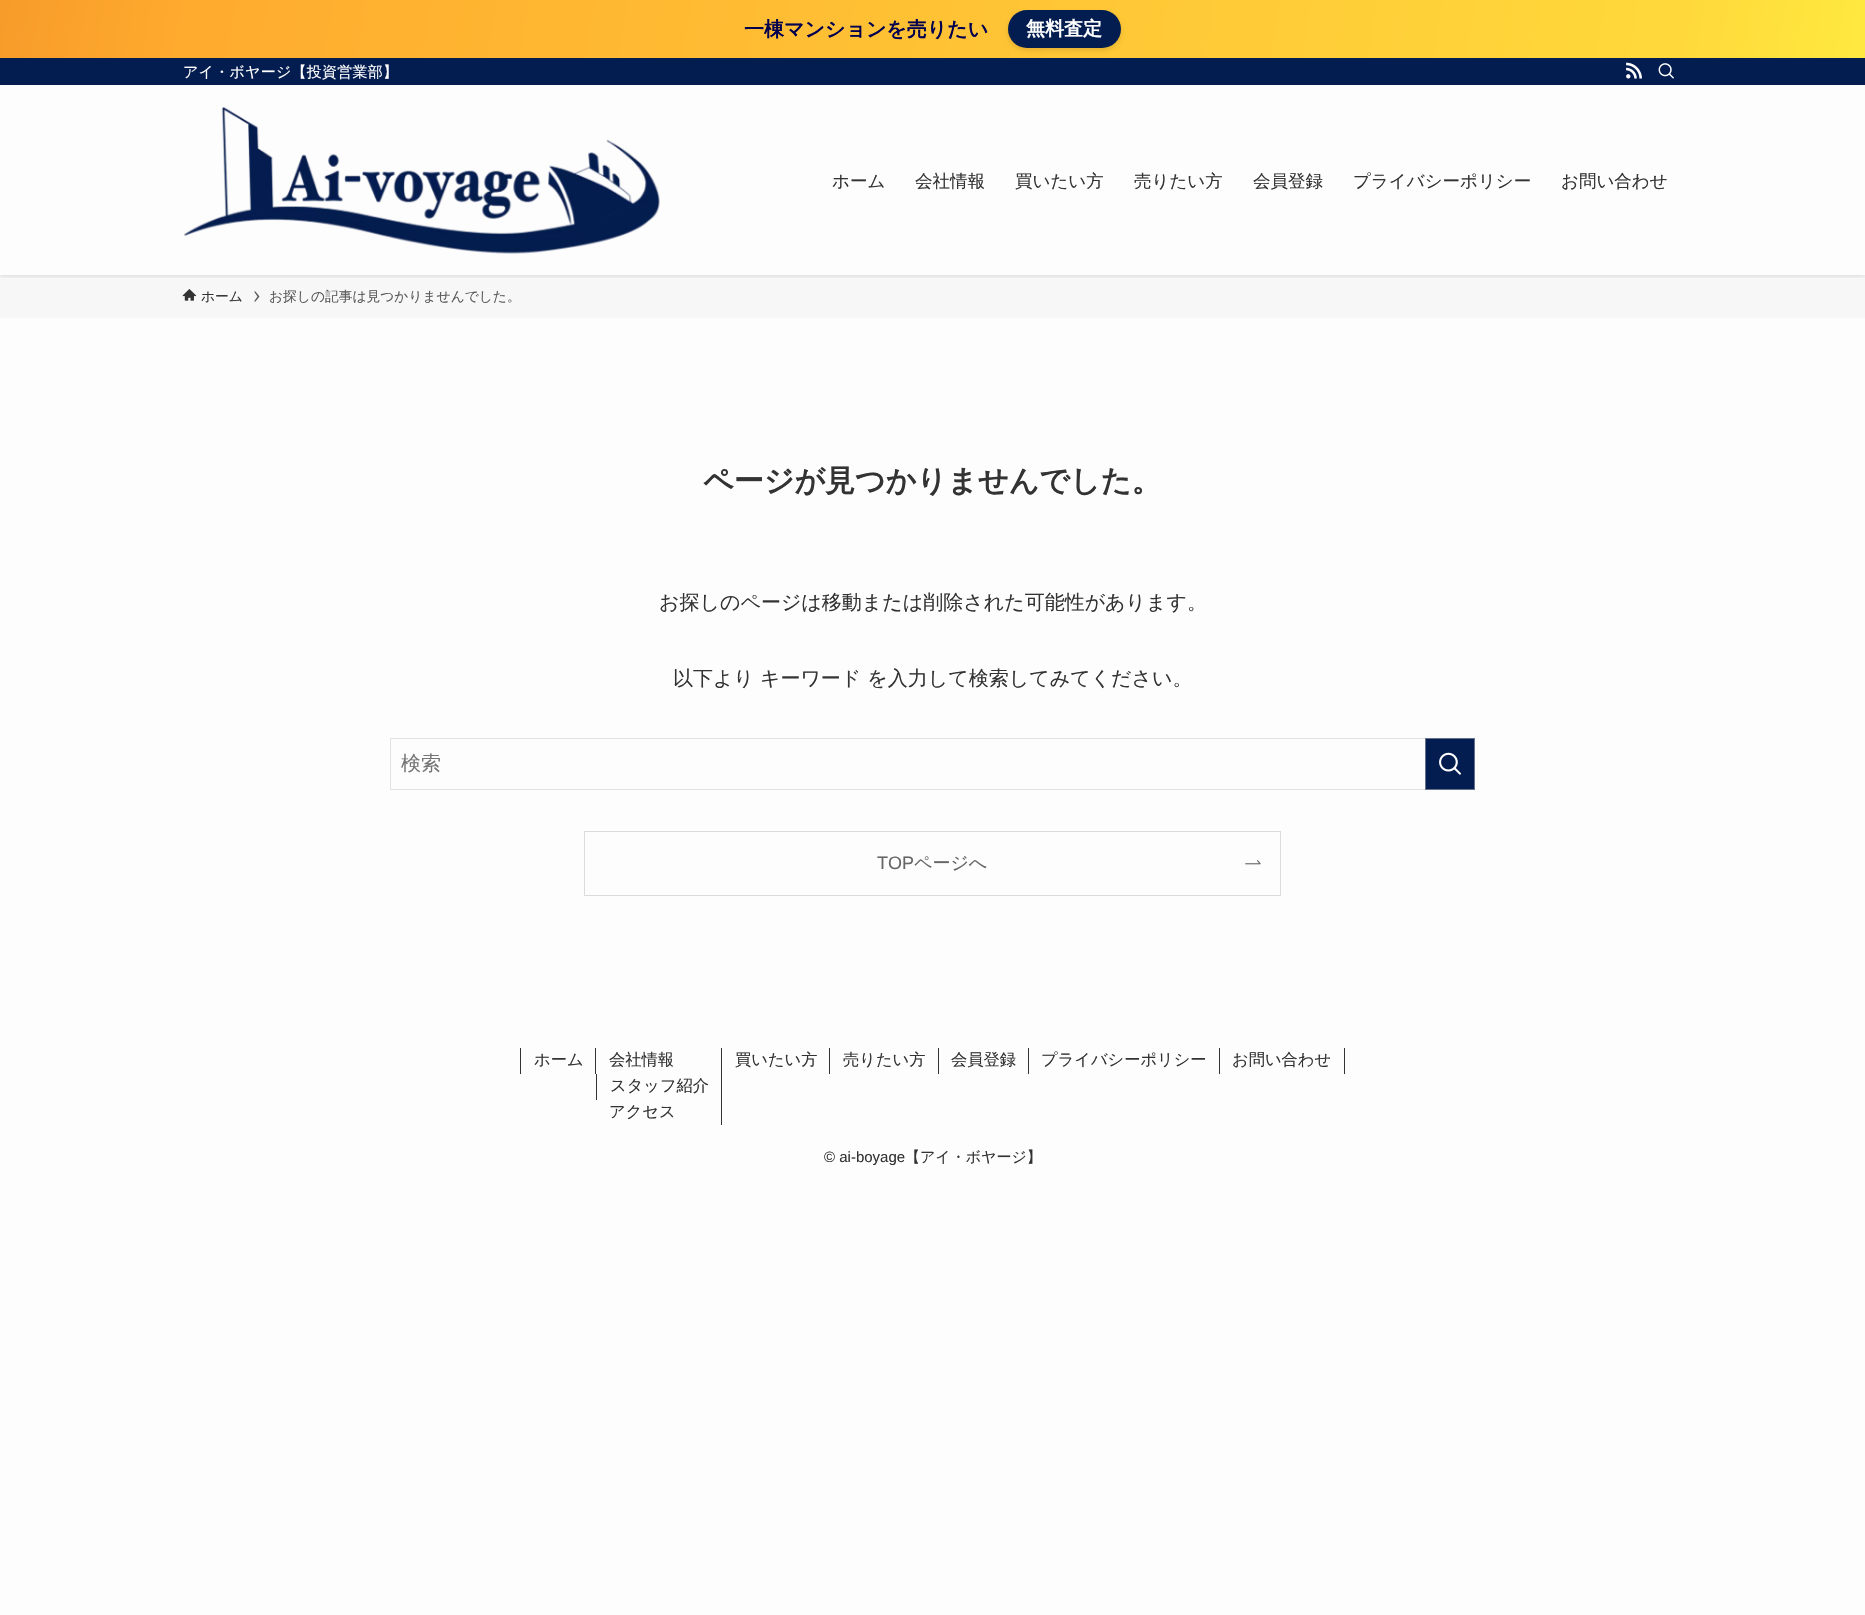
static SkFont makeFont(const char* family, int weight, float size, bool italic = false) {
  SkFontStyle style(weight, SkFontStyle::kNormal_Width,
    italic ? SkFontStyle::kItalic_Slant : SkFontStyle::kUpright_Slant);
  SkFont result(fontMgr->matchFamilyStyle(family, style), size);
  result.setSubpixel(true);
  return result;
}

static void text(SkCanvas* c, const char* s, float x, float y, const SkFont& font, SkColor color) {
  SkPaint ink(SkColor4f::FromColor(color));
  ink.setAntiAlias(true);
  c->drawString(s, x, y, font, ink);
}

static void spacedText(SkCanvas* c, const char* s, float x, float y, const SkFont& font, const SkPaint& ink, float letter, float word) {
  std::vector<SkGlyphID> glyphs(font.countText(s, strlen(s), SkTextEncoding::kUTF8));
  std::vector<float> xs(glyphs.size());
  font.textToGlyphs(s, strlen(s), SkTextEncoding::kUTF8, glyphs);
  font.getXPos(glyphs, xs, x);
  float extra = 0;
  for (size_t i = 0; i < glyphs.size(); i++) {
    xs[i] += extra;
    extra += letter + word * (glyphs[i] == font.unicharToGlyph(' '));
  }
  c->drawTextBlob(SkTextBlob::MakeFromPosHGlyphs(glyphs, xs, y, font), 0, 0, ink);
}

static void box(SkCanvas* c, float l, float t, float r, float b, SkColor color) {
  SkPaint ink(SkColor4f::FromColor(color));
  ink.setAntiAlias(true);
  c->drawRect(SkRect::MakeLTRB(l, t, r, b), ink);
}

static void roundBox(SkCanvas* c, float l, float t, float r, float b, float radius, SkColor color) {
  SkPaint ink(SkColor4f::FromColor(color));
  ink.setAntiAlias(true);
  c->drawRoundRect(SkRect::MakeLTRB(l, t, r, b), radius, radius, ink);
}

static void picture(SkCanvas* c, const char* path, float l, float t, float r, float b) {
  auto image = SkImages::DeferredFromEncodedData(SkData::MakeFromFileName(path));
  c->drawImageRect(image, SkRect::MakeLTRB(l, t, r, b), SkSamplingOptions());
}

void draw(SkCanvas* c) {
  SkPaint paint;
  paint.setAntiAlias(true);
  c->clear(0xfffdfdfd);
  {
    const SkColor colors[] = {0xfff79b2a, 0xffffab2e, 0xffffd93b, 0xffffe93f};
    const float stops[] = {0, 0.1f, 0.9f, 1};
    const SkPoint ends[] = {{23, -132}, {1842, 189}};
    paint.setShader(SkGradientShader::MakeLinear(ends, colors, stops, 4, SkTileMode::kClamp));
    paint.setAlpha(255);
  }
  c->drawRect(SkRect::MakeLTRB(0, 0, 1865, 58), paint);
  SkFont face1 = makeFont("WenQuanYi Zen Hei", 700, 20);
  text(c, "一棟マンションを売りたい", 744, 36, face1, 0xff00004f);
  paint.setShader(nullptr);
  paint.setColor(0x1f000000);
  paint.setMaskFilter(SkMaskFilter::MakeBlur(kNormal_SkBlurStyle, 2.5f));
  c->drawRoundRect(SkRect::MakeLTRB(1008, 13, 1121, 50), 18.5f, 18.5f, paint);
  paint.setMaskFilter(nullptr);
  roundBox(c, 1008, 10, 1121, 48, 19, 0xff031d50);
  SkFont face2 = makeFont("WenQuanYi Zen Hei", 700, 19);
  text(c, "無料査定", 1026, 35, face2, 0xffffffff);
  box(c, 0, 275, 1865, 318, 0xfff7f7f7);
  c->save();
  c->clipRect(SkRect::MakeLTRB(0, 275, 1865, 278));
  paint.setMaskFilter(SkMaskFilter::MakeBlur(kNormal_SkBlurStyle, 2.5f));
  c->drawRect(SkRect::MakeLTRB(0, 59, 1865, 276), paint);
  paint.setMaskFilter(nullptr);
  c->restore();
  box(c, 0, 58, 1865, 85, 0xff031d50);
  SkFont face3 = makeFont("WenQuanYi Zen Hei", 500, 15);
  paint.setColor(0xffffffff);
  spacedText(c, "アイ・ボヤージ【投資営業部】", 183, 77, face3, paint, 0.25f, 0);
  picture(c, "img_01.png", 1626, 62, 1642, 79);
  picture(c, "img_02.png", 1658, 63, 1674, 79);
  picture(c, "img_03.png", 184, 107, 660, 254);
  SkFont face4 = makeFont("WenQuanYi Zen Hei", 500, 17.5f);
  text(c, "ホーム", 832, 187, face4, 0xff333333);
  text(c, "会社情報", 915, 187, face4, 0xff333333);
  text(c, "買いたい方", 1015, 187, face4, 0xff333333);
  text(c, "売りたい方", 1134, 187, face4, 0xff333333);
  text(c, "会員登録", 1253, 187, face4, 0xff333333);
  text(c, "プライバシーポリシー", 1353, 187, face4, 0xff333333);
  text(c, "お問い合わせ", 1561, 187, face4, 0xff333333);
  picture(c, "img_04.png", 182, 289, 197, 301);
  SkFont face5 = makeFont("WenQuanYi Zen Hei", 500, 13.75f);
  text(c, "ホーム", 201, 301, face5, 0xff333333);
  paint.setColor(0xff5a5a5a);
  c->drawPath(SkPathBuilder().moveTo(255.5f, 291.5f).lineTo(254, 291.5f).lineTo(257.5f, 296.5f).lineTo(254, 301.5f).lineTo(255.5f, 301.5f).lineTo(259.5f, 296.5f).close().detach(), paint);
  text(c, "お探しの記事は見つかりませんでした。", 269, 301, face5, 0xff5a5a5a);
  SkFont face6 = makeFont("WenQuanYi Zen Hei", 700, 30);
  text(c, "ページが見つかりませんでした。", 703, 491, face6, 0xff333333);
  SkFont face7 = makeFont("WenQuanYi Zen Hei", 500, 20);
  text(c, "お探しのページは移動または削除された可能性があります。", 659, 609, face7, 0xff333333);
  text(c, "以下より キーワード を入力して検索してみてください。", 673, 685, face7, 0xff333333);
  paint.setStyle(SkPaint::kStroke_Style);
  paint.setStrokeWidth(1);
  paint.setColor(0xffe3e3e3);
  c->drawRect(SkRect::MakeLTRB(390.5f, 738.5f, 1474.5f, 789.5f), paint);
  text(c, "検索", 401, 770, face7, 0xff757575);
  paint.setStyle(SkPaint::kFill_Style);
  paint.setColor(0xff031d50);
  c->drawRect(SkRect::MakeLTRB(1425.5f, 738.5f, 1474.5f, 789.5f), paint);
  paint.setStyle(SkPaint::kStroke_Style);
  paint.setColor(0xff65728c);
  c->drawRect(SkRect::MakeLTRB(1425.5f, 738.5f, 1474.5f, 789.5f), paint);
  picture(c, "img_05.png", 1439, 752, 1461, 775);
  paint.setColor(0xffdcdcdc);
  c->drawRect(SkRect::MakeLTRB(584.5f, 831.5f, 1280.5f, 895.5f), paint);
  SkFont face8 = makeFont("Liberation Sans", 400, 18);
  text(c, "TOP", 877, 869, face8, 0xff666666);
  SkFont face9 = makeFont("WenQuanYi Zen Hei", 500, 18);
  text(c, "ページへ", 914, 869, face9, 0xff666666);
  picture(c, "img_06.png", 1245, 860, 1261, 865);
  box(c, 595, 1048, 596, 1074, 0xff333333);
  box(c, 520, 1048, 521, 1074, 0xff333333);
  SkFont face10 = makeFont("WenQuanYi Zen Hei", 500, 16.25f);
  text(c, "ホーム", 534, 1065, face10, 0xff333333);
  box(c, 721, 1048, 722, 1125, 0xff333333);
  text(c, "会社情報", 609, 1065, face10, 0xff333333);
  box(c, 596, 1074, 597, 1100, 0xff333333);
  text(c, "スタッフ紹介", 610, 1091, face10, 0xff333333);
  text(c, "アクセス", 609, 1117, face10, 0xff333333);
  box(c, 829, 1048, 830, 1074, 0xff333333);
  text(c, "買いたい方", 735, 1065, face10, 0xff333333);
  box(c, 938, 1048, 939, 1074, 0xff333333);
  text(c, "売りたい方", 843, 1065, face10, 0xff333333);
  box(c, 1028, 1048, 1029, 1074, 0xff333333);
  text(c, "会員登録", 951, 1065, face10, 0xff333333);
  box(c, 1219, 1048, 1220, 1074, 0xff333333);
  text(c, "プライバシーポリシー", 1041, 1065, face10, 0xff333333);
  box(c, 1344, 1048, 1345, 1074, 0xff333333);
  text(c, "お問い合わせ", 1232, 1065, face10, 0xff333333);
  SkFont face11 = makeFont("Liberation Sans", 400, 15);
  text(c, "© ai-boyage", 824, 1162, face11, 0xff333333);
  text(c, "【アイ・ボヤージ】", 905, 1162, face3, 0xff333333);
}
